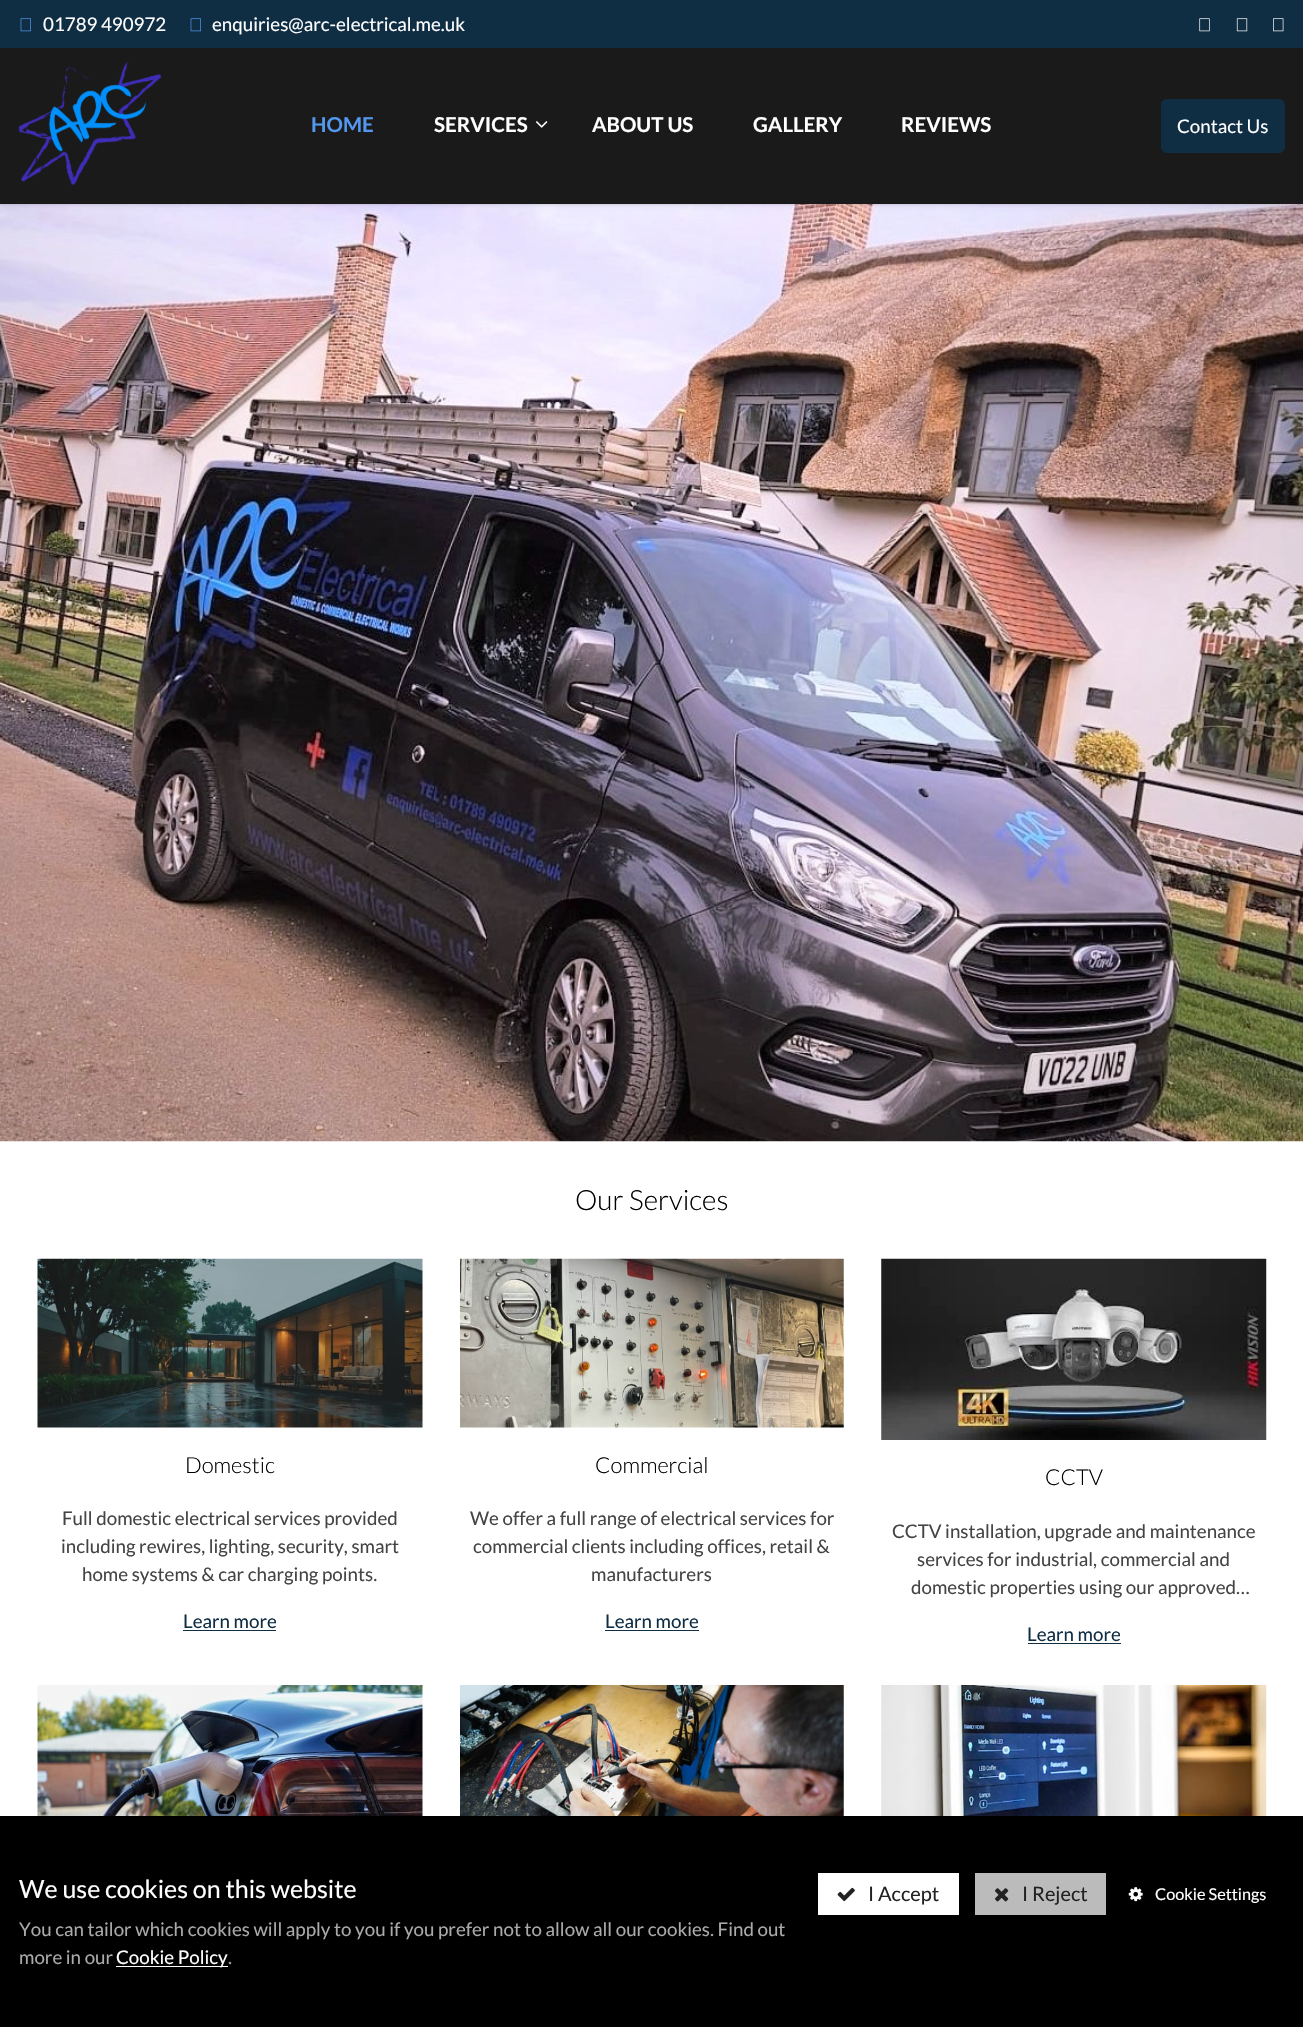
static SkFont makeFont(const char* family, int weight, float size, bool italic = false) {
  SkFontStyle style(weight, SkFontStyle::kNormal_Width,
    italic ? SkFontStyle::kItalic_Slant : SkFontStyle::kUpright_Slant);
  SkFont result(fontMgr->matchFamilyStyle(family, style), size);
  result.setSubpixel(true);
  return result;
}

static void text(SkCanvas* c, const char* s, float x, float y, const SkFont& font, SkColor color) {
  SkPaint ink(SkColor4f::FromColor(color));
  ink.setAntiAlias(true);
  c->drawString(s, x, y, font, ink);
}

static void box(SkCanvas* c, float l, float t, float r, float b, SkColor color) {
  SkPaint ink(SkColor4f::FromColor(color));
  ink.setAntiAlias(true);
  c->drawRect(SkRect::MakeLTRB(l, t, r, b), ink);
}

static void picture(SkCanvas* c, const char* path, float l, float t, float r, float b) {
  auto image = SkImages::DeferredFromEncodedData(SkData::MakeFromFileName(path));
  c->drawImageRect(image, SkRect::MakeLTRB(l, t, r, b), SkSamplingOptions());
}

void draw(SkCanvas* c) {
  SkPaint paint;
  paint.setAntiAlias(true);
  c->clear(0xffffffff);
  picture(c, "img_07.png", 0, 204, 1303, 1142);
  paint.setColor(0x1a000000);
  paint.setMaskFilter(SkMaskFilter::MakeBlur(kNormal_SkBlurStyle, 1));
  c->drawRect(SkRect::MakeLTRB(1, 3, 1303, 204), paint);
  paint.setMaskFilter(nullptr);
  paint.setMaskFilter(SkMaskFilter::MakeBlur(kNormal_SkBlurStyle, 2));
  c->drawRect(SkRect::MakeLTRB(0, 1, 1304, 205), paint);
  paint.setMaskFilter(nullptr);
  box(c, 0, 0, 1303, 48, 0xff0f2d43);
  picture(c, "img_01.png", 20, 18, 31, 32);
  SkFont face1 = makeFont("Lato", 400, 18.75f);
  text(c, "01789 490972", 43, 31, face1, 0xffffffff);
  picture(c, "img_01.png", 190, 18, 201, 32);
  text(c, "enquiries@arc-electrical.me.uk", 212, 31, face1, 0xffffffff);
  picture(c, "img_02.png", 1199, 18, 1210, 32);
  picture(c, "img_03.png", 1236, 18, 1248, 32);
  picture(c, "img_04.png", 1273, 18, 1284, 32);
  box(c, 0, 48, 1303, 204, 0xff1a1a1a);
  picture(c, "img_05.png", 18, 60, 162, 185);
  SkFont face2 = makeFont("Lato", 700, 20.5f);
  text(c, "HOME", 311, 132, face2, 0xff5397ee);
  text(c, "SERVICES", 434, 132, face2, 0xffffffff);
  picture(c, "img_06.png", 536, 121, 548, 128);
  text(c, "ABOUT US", 592, 132, face2, 0xffffffff);
  text(c, "GALLERY", 753, 132, face2, 0xffffffff);
  text(c, "REVIEWS", 901, 132, face2, 0xffffffff);
  paint.setColor(0xff0f2d43);
  c->drawRoundRect(SkRect::MakeLTRB(1161.5f, 99.5f, 1284.5f, 152.5f), 5.5f, 5.5f, paint);
  paint.setStyle(SkPaint::kStroke_Style);
  paint.setStrokeWidth(1);
  c->drawRoundRect(SkRect::MakeLTRB(1161.5f, 99.5f, 1284.5f, 152.5f), 5.5f, 5.5f, paint);
  text(c, "Contact Us", 1177, 133, face1, 0xffffffff);
  SkFont face3 = makeFont("Lato", 300, 28);
  text(c, "Our Services", 575, 1210, face3, 0xff000000);
  picture(c, "img_08.png", 37, 1258, 423, 1428);
  SkFont face4 = makeFont("Lato", 300, 22);
  text(c, "Domestic", 185, 1473, face4, 0xff000000);
  text(c, "Full domestic electrical services provided", 62, 1525, face1, 0xff444444);
  text(c, "including rewires, lighting, security, smart", 61, 1553, face1, 0xff444444);
  text(c, "home systems & car charging points.", 82, 1581, face1, 0xff444444);
  text(c, "Learn more", 183, 1628, face1, 0xff0f2d43);
  box(c, 183, 1630, 276, 1631, 0xff0f2d43);
  picture(c, "img_09.png", 460, 1258, 844, 1428);
  text(c, "Commercial", 595, 1473, face4, 0xff000000);
  text(c, "We offer a full range of electrical services for", 470, 1525, face1, 0xff444444);
  text(c, "commercial clients including offices, retail &", 473, 1553, face1, 0xff444444);
  text(c, "manufacturers", 591, 1581, face1, 0xff444444);
  text(c, "Learn more", 605, 1628, face1, 0xff0f2d43);
  box(c, 605, 1630, 699, 1631, 0xff0f2d43);
  picture(c, "img_10.png", 881, 1258, 1267, 1440);
  text(c, "CCTV", 1045, 1485, face4, 0xff000000);
  text(c, "CCTV installation, upgrade and maintenance", 892, 1538, face1, 0xff444444);
  text(c, "services for industrial, commercial and", 917, 1566, face1, 0xff444444);
  text(c, "domestic properties using our approved…", 911, 1594, face1, 0xff444444);
  text(c, "Learn more", 1027, 1641, face1, 0xff0f2d43);
  box(c, 1028, 1643, 1121, 1644, 0xff0f2d43);
  picture(c, "img_11.png", 37, 1685, 423, 1816);
  picture(c, "img_12.png", 460, 1685, 844, 1816);
  picture(c, "img_13.png", 881, 1685, 1267, 1816);
  box(c, 0, 1816, 1303, 2027, 0xff000000);
  SkFont face5 = makeFont("Lato", 400, 25);
  text(c, "We use cookies on this website", 19, 1898, face5, 0xffffffff);
  box(c, 818, 1873, 959, 1915, 0xffffffff);
  picture(c, "img_14.png", 837, 1887, 855, 1902);
  SkFont face6 = makeFont("Lato", 400, 20);
  text(c, "I Accept", 868, 1901, face6, 0xff222222);
  box(c, 975, 1873, 1106, 1915, 0xffbbbbbb);
  picture(c, "img_15.png", 995, 1888, 1009, 1902);
  text(c, "I Reject", 1022, 1901, face6, 0xff222222);
  picture(c, "img_16.png", 1128, 1887, 1143, 1902);
  SkFont face7 = makeFont("Lato", 400, 16.25f);
  text(c, "Cookie Settings", 1155, 1900, face7, 0xffffffff);
  text(c, "You can tailor which cookies will apply to you if you prefer not to allow all our cookies. Find out", 19, 1936, face1, 0xffaaaaaa);
  text(c, "more in our", 19, 1964, face1, 0xffaaaaaa);
  box(c, 116, 1966, 228, 1967, 0xffffffff);
  text(c, "Cookie Policy", 116, 1964, face1, 0xffffffff);
  text(c, ".", 228, 1964, face1, 0xffaaaaaa);
}
